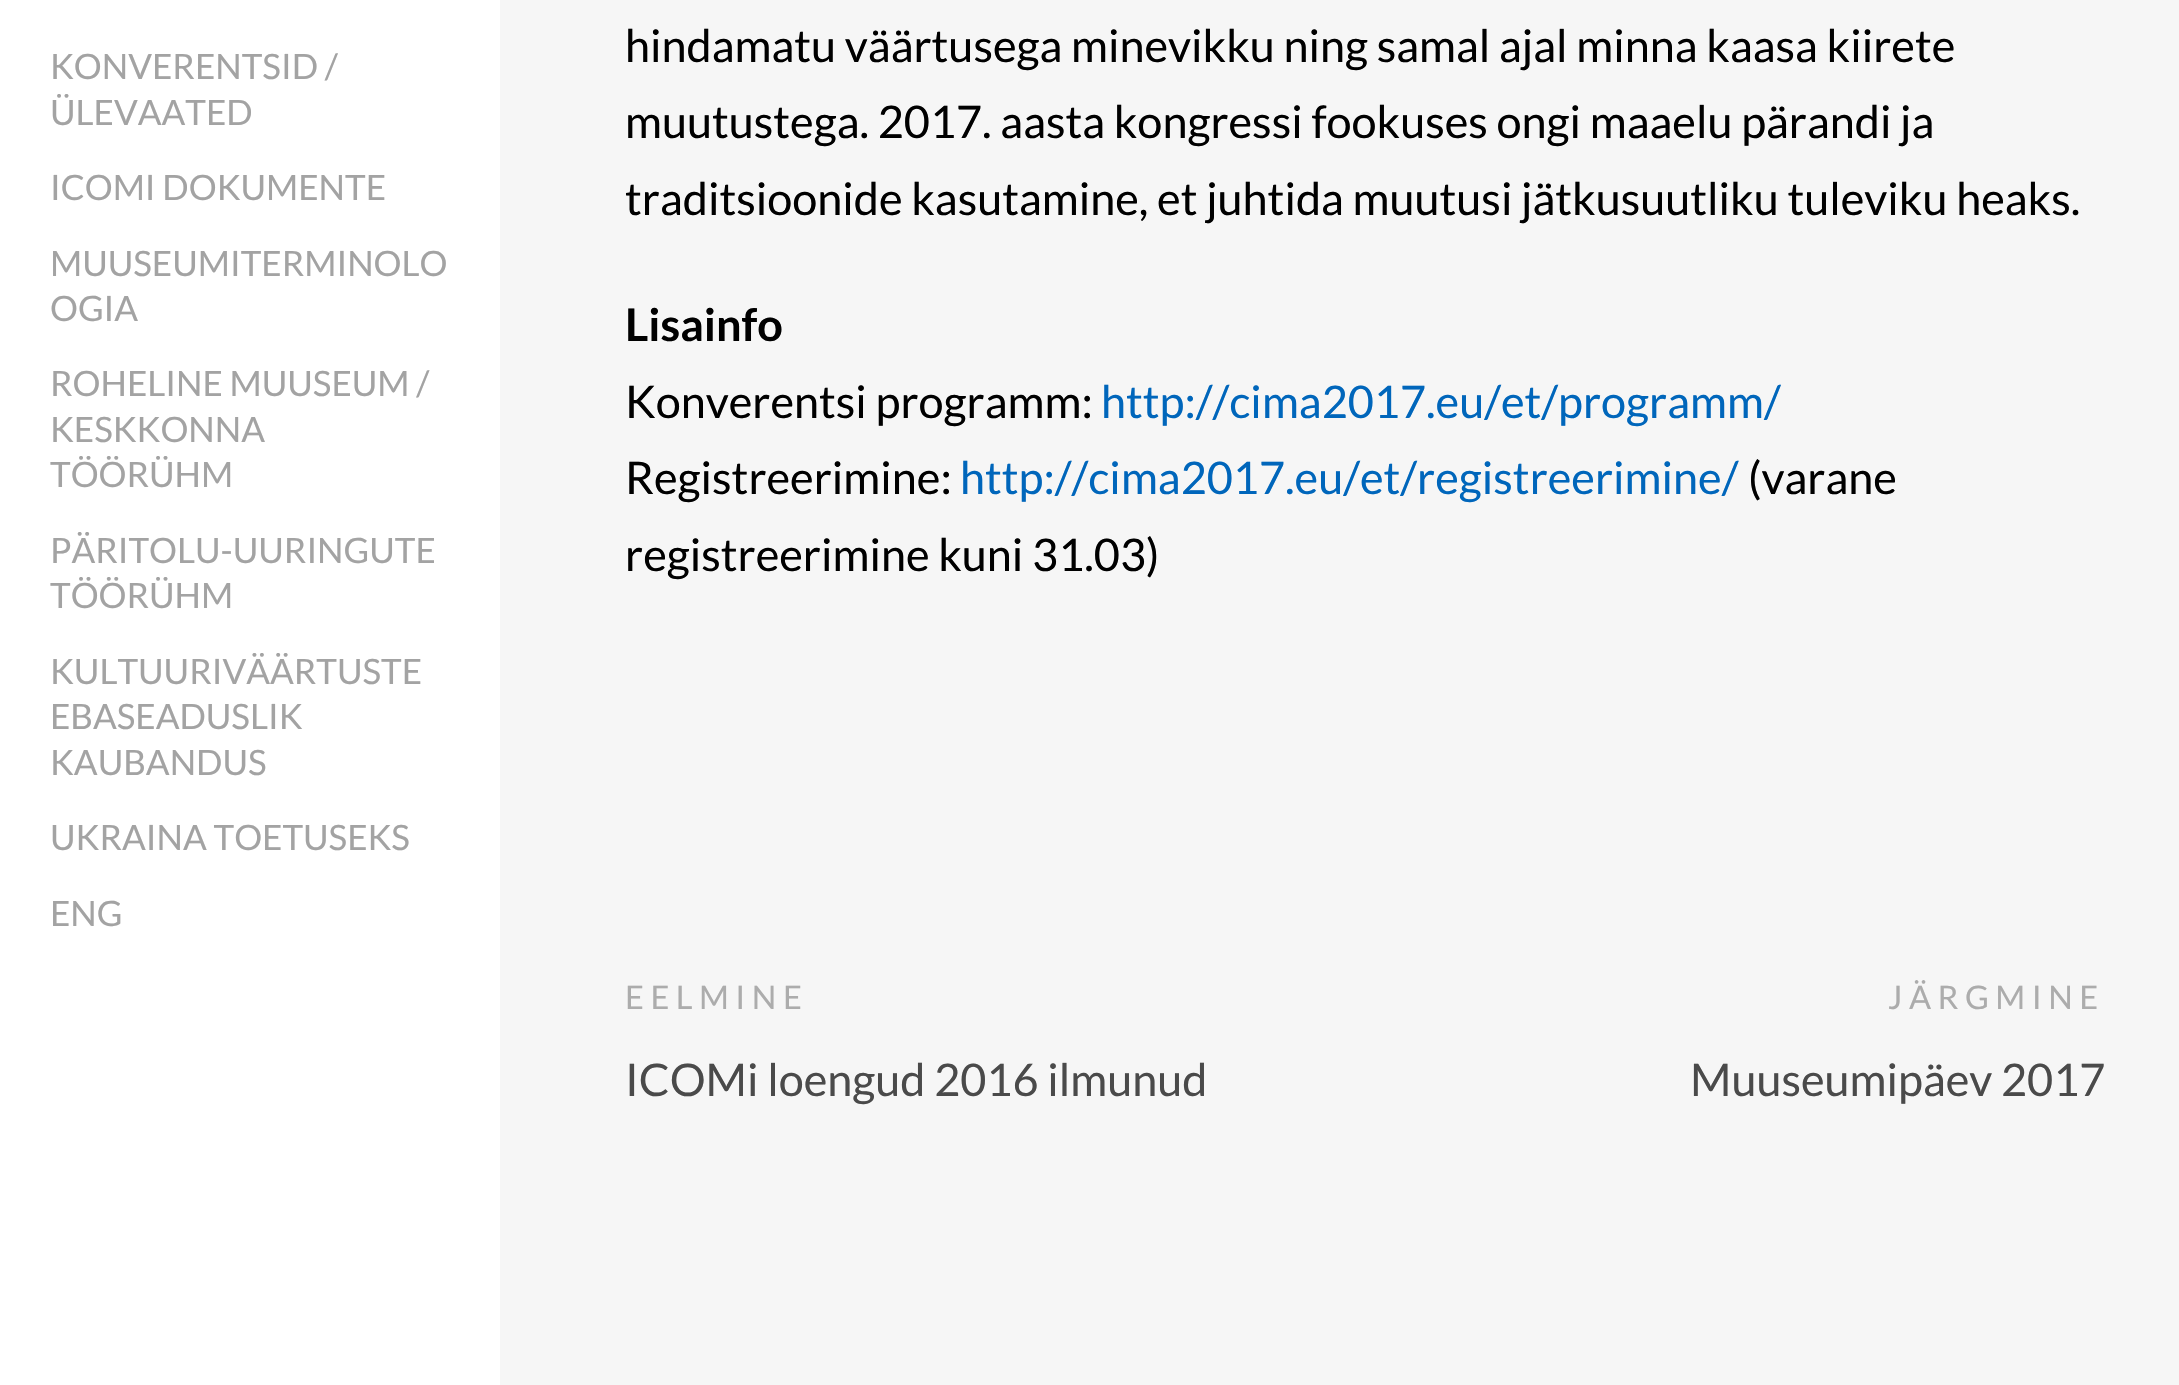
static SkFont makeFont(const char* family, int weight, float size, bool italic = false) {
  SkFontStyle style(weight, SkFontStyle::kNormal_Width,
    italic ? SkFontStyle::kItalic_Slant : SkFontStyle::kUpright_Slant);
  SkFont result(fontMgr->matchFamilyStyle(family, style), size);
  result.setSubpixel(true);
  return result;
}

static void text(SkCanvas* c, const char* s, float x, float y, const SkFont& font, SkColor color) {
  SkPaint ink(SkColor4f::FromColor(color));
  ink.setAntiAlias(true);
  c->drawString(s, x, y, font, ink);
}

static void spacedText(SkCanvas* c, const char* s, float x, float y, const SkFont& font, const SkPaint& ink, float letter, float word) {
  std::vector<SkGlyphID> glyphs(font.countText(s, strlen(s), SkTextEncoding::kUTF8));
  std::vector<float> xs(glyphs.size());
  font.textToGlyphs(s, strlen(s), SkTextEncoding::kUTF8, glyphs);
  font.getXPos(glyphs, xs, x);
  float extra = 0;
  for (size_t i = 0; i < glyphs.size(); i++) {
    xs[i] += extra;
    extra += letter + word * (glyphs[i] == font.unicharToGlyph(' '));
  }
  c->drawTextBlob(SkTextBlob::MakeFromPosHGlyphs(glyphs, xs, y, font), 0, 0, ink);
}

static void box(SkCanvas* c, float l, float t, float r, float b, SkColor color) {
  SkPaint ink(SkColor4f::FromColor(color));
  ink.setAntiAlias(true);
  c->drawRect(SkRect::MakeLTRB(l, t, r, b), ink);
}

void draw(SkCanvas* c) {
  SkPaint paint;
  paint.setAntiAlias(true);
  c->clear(0xffffffff);
  SkFont face1 = makeFont("Lato", 400, 35);
  text(c, "KONVERENTSID /", 50, 79, face1, 0xffa3a3a3);
  text(c, "ÜLEVAATED", 50, 125, face1, 0xffa3a3a3);
  text(c, "ICOMI DOKUMENTE", 50, 200, face1, 0xffa3a3a3);
  text(c, "MUUSEUMITERMINOLO", 50, 276, face1, 0xffa3a3a3);
  text(c, "OGIA", 50, 321, face1, 0xffa3a3a3);
  text(c, "ROHELINE MUUSEUM /", 50, 396, face1, 0xffa3a3a3);
  text(c, "KESKKONNA", 50, 442, face1, 0xffa3a3a3);
  text(c, "TÖÖRÜHM", 50, 487, face1, 0xffa3a3a3);
  text(c, "PÄRITOLU-UURINGUTE", 50, 563, face1, 0xffa3a3a3);
  text(c, "TÖÖRÜHM", 50, 608, face1, 0xffa3a3a3);
  text(c, "KULTUURIVÄÄRTUSTE", 50, 684, face1, 0xffa3a3a3);
  text(c, "EBASEADUSLIK", 50, 729, face1, 0xffa3a3a3);
  text(c, "KAUBANDUS", 50, 775, face1, 0xffa3a3a3);
  text(c, "UKRAINA TOETUSEKS", 50, 850, face1, 0xffa3a3a3);
  text(c, "ENG", 50, 926, face1, 0xffa3a3a3);
  box(c, 500, 0, 2179, 1385, 0xfff6f6f6);
  SkFont face2 = makeFont("Lato", 400, 45);
  text(c, "hindamatu väärtusega minevikku ning samal ajal minna kaasa kiirete", 625, 62, face2, 0xff000000);
  text(c, "muutustega. 2017. aasta kongressi fookuses ongi maaelu pärandi ja", 625, 138, face2, 0xff000000);
  text(c, "traditsioonide kasutamine, et juhtida muutusi jätkusuutliku tuleviku heaks.", 625, 215, face2, 0xff000000);
  SkFont face3 = makeFont("Lato", 700, 45);
  text(c, "Lisainfo", 625, 341, face3, 0xff000000);
  text(c, "Konverentsi programm:", 625, 418, face2, 0xff000000);
  text(c, "http://cima2017.eu/et/programm/", 1101, 418, face2, 0xff0066bb);
  text(c, "Registreerimine:", 625, 494, face2, 0xff000000);
  text(c, "http://cima2017.eu/et/registreerimine/", 960, 494, face2, 0xff0066bb);
  text(c, "(varane", 1748, 494, face2, 0xff000000);
  text(c, "registreerimine kuni 31.03)", 625, 571, face2, 0xff000000);
  SkFont face4 = makeFont("Lato", 400, 32.5f);
  paint.setColor(0xffacacac);
  spacedText(c, "EELMINE", 625, 1009, face4, paint, 6.5f, 0);
  text(c, "ICOMi loengud 2016 ilmunud", 625, 1096, face2, 0xff4a4a4a);
  spacedText(c, "JÄRGMINE", 1888, 1009, face4, paint, 6.5f, 0);
  text(c, "Muuseumipäev 2017", 1690, 1096, face2, 0xff4a4a4a);
}
